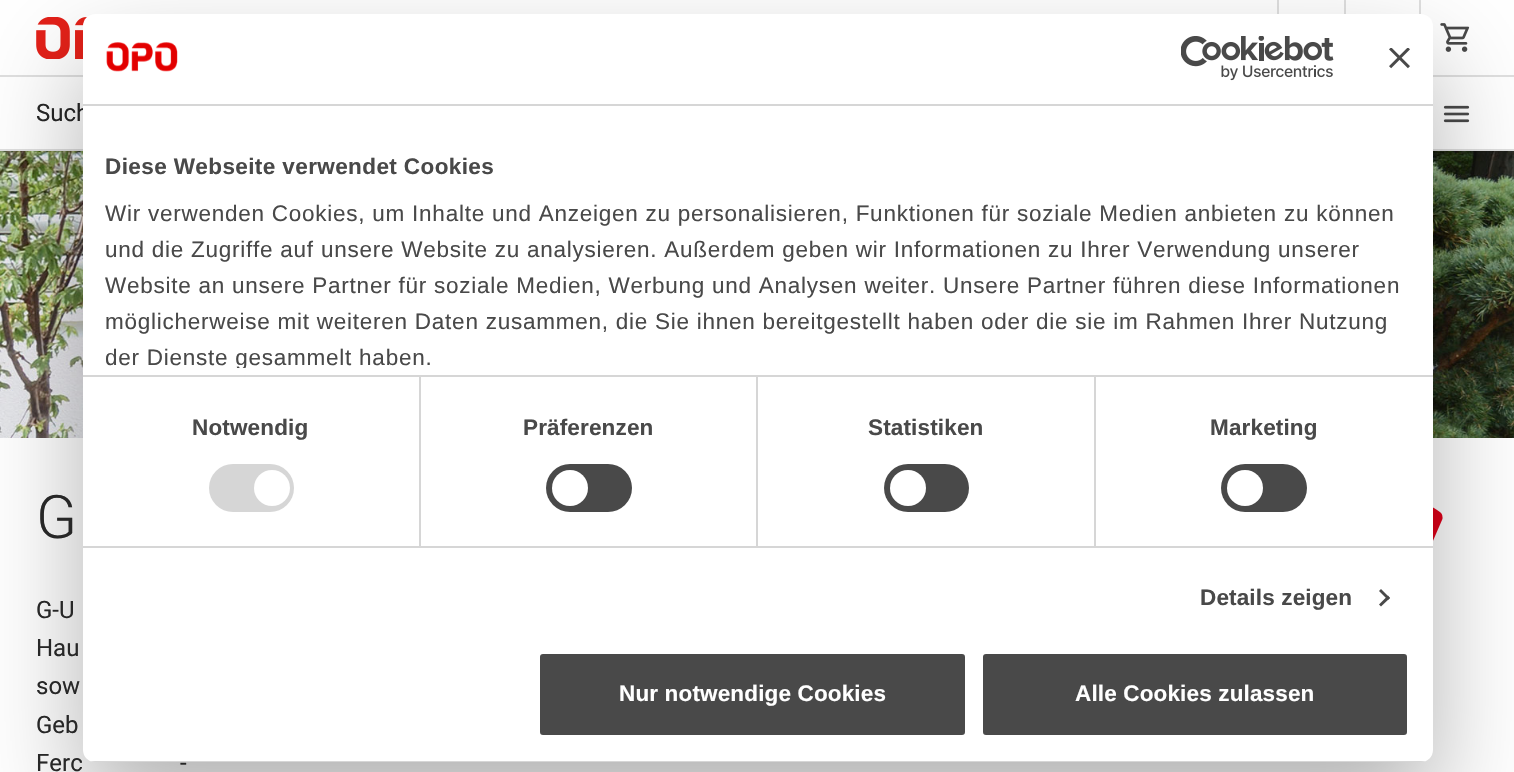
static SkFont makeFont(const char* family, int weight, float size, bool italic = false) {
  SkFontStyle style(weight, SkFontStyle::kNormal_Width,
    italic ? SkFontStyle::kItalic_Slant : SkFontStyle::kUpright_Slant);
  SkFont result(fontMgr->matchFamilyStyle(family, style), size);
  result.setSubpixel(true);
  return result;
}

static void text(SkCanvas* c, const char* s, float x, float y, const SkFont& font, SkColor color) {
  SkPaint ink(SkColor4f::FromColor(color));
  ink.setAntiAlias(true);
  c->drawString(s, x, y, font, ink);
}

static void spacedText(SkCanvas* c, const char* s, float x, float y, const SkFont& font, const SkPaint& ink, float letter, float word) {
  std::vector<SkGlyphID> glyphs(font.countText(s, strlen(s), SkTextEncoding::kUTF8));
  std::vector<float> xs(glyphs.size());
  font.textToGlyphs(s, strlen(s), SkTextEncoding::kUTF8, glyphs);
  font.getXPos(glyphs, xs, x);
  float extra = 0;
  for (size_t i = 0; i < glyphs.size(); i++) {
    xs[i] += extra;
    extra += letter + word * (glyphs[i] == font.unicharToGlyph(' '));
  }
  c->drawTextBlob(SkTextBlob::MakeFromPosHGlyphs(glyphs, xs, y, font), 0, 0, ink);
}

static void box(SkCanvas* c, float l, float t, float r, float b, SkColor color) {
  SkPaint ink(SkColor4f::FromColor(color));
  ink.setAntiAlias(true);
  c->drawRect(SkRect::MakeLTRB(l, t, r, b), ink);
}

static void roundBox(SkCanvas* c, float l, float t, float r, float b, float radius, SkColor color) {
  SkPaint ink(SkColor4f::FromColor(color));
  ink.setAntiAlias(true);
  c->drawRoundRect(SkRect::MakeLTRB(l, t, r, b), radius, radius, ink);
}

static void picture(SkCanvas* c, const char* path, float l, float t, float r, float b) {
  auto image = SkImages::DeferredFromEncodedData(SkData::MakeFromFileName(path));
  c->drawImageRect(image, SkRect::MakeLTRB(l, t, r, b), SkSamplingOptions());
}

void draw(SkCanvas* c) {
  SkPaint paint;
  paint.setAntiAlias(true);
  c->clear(0xffffffff);
  box(c, 0, 149, 1514, 151, 0xffdfdfdf);
  picture(c, "img_01.png", 36, 17, 88, 59);
  box(c, 1277, 0, 1279, 14, 0xffdfdfdf);
  box(c, 1344, 0, 1346, 14, 0xffdfdfdf);
  box(c, 1419, 0, 1421, 14, 0xffdfdfdf);
  picture(c, "img_02.png", 1440, 23, 1470, 52);
  box(c, 0, 75, 1514, 77, 0xffdfdfdf);
  SkFont face1 = makeFont("Roboto", 400, 24);
  text(c, "Such", 36, 121, face1, 0xff272727);
  picture(c, "img_03.png", 1443, 105, 1470, 123);
  picture(c, "img_07.png", 0, 151, 1514, 438);
  picture(c, "img_08.png", 1433, 507, 1443, 541);
  paint.setColor(0x4d000000);
  paint.setMaskFilter(SkMaskFilter::MakeBlur(kNormal_SkBlurStyle, 51));
  c->drawRoundRect(SkRect::MakeLTRB(83, 62, 1433, 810), 12, 12, paint);
  paint.setMaskFilter(nullptr);
  roundBox(c, 83, 14, 1433, 762, 12, 0xffffffff);
  box(c, 83, 104, 1433, 106, 0xffd6d6d6);
  picture(c, "img_04.png", 106, 42, 178, 72);
  picture(c, "img_05.png", 1181, 36, 1334, 81);
  picture(c, "img_06.png", 1389, 48, 1410, 69);
  box(c, 83, 375, 1433, 377, 0xffd6d6d6);
  SkFont face2 = makeFont("Liberation Sans", 700, 22.5f);
  paint.setColor(0xff494949);
  spacedText(c, "Diese Webseite verwendet Cookies", 105, 174, face2, paint, 0.4f, 0);
  SkFont face3 = makeFont("Liberation Sans", 400, 22.5f);
  spacedText(c, "Wir verwenden Cookies, um Inhalte und Anzeigen zu personalisieren, Funktionen für soziale Medien anbieten zu können", 105, 221, face3, paint, 0.75f, 0);
  spacedText(c, "und die Zugriffe auf unsere Website zu analysieren. Außerdem geben wir Informationen zu Ihrer Verwendung unserer", 105, 257, face3, paint, 0.75f, 0);
  spacedText(c, "Website an unsere Partner für soziale Medien, Werbung und Analysen weiter. Unsere Partner führen diese Informationen", 105, 293, face3, paint, 0.75f, 0);
  spacedText(c, "möglicherweise mit weiteren Daten zusammen, die Sie ihnen bereitgestellt haben oder die sie im Rahmen Ihrer Nutzung", 105, 329, face3, paint, 0.75f, 0);
  c->save();
  c->clipRect(SkRect::MakeLTRB(92, 113, 1424, 368));
  spacedText(c, "der Dienste gesammelt haben.", 105, 365, face3, paint, 0.75f, 0);
  c->restore();
  box(c, 83, 546, 1433, 548, 0xffd6d6d6);
  box(c, 419, 377, 421, 546, 0xffd6d6d6);
  spacedText(c, "Notwendig", 192, 435, face2, paint, 0.15f, 0);
  roundBox(c, 209, 464, 294, 512, 24, 0xffd6d6d6);
  paint.setColor(0xffffffff);
  c->drawCircle(272, 488, 18, paint);
  box(c, 756, 377, 758, 546, 0xffd6d6d6);
  paint.setColor(0xff494949);
  spacedText(c, "Präferenzen", 523, 435, face2, paint, 0.15f, 0);
  roundBox(c, 546, 464, 632, 512, 24, 0xff494949);
  paint.setColor(0xffffffff);
  c->drawCircle(570, 488, 18, paint);
  box(c, 1094, 377, 1096, 546, 0xffd6d6d6);
  paint.setColor(0xff494949);
  spacedText(c, "Statistiken", 868, 435, face2, paint, 0.15f, 0);
  roundBox(c, 884, 464, 969, 512, 24, 0xff494949);
  paint.setColor(0xffffffff);
  c->drawCircle(908, 488, 18, paint);
  paint.setColor(0xff494949);
  spacedText(c, "Marketing", 1210, 435, face2, paint, 0.15f, 0);
  roundBox(c, 1221, 464, 1307, 512, 24, 0xff494949);
  paint.setColor(0xffffffff);
  c->drawCircle(1245, 488, 18, paint);
  paint.setColor(0xff494949);
  spacedText(c, "Details zeigen", 1200, 605, face2, paint, 0.15f, 0);
  c->drawPath(SkPathBuilder().moveTo(1381, 589).lineTo(1390, 598).lineTo(1388, 600).lineTo(1379, 591).close().detach(), paint);
  c->drawPath(SkPathBuilder().moveTo(1388, 595.5f).lineTo(1390, 598).lineTo(1381, 606.5f).lineTo(1379, 604.5f).close().detach(), paint);
  c->save();
  c->clipPath(SkPathBuilder().moveTo(95, 14).lineTo(1421, 14).cubicTo(1427.5f, 14, 1433, 19.5f, 1433, 26).lineTo(1433, 750).cubicTo(1433, 756.5f, 1427.5f, 762, 1421, 762).lineTo(95, 762).cubicTo(88.5f, 762, 83, 756.5f, 83, 750).lineTo(83, 26).cubicTo(83, 19.5f, 88.5f, 14, 95, 14).close().detach(), true);
  box(c, 83, 761, 1433, 762, 0xffd6d6d6);
  c->restore();
  c->drawRoundRect(SkRect::MakeLTRB(538.5f, 652.5f, 966.5f, 736.5f), 4.5f, 4.5f, paint);
  paint.setStyle(SkPaint::kStroke_Style);
  paint.setStrokeWidth(3);
  paint.setColor(0xffffffff);
  c->drawRoundRect(SkRect::MakeLTRB(538.5f, 652.5f, 966.5f, 736.5f), 4.5f, 4.5f, paint);
  paint.setStyle(SkPaint::kFill_Style);
  spacedText(c, "Nur notwendige Cookies", 619, 701, face2, paint, 0.15f, 0);
  paint.setColor(0xff494949);
  c->drawRoundRect(SkRect::MakeLTRB(981.5f, 652.5f, 1408.5f, 736.5f), 4.5f, 4.5f, paint);
  paint.setStyle(SkPaint::kStroke_Style);
  paint.setColor(0xffffffff);
  c->drawRoundRect(SkRect::MakeLTRB(981.5f, 652.5f, 1408.5f, 736.5f), 4.5f, 4.5f, paint);
  paint.setStyle(SkPaint::kFill_Style);
  spacedText(c, "Alle Cookies zulassen", 1075, 701, face2, paint, 0.15f, 0);
  SkFont face4 = makeFont("Roboto", 300, 60);
  text(c, "G", 36, 538, face4, 0xff272727);
  text(c, "G-U", 36, 618, face1, 0xff272727);
  text(c, "Hau", 36, 656, face1, 0xff272727);
  text(c, "sow", 36, 694, face1, 0xff272727);
  text(c, "Geb", 36, 733, face1, 0xff272727);
  text(c, "Ferc", 36, 771, face1, 0xff272727);
  text(c, "-", 180, 771, face1, 0xff272727);
}
